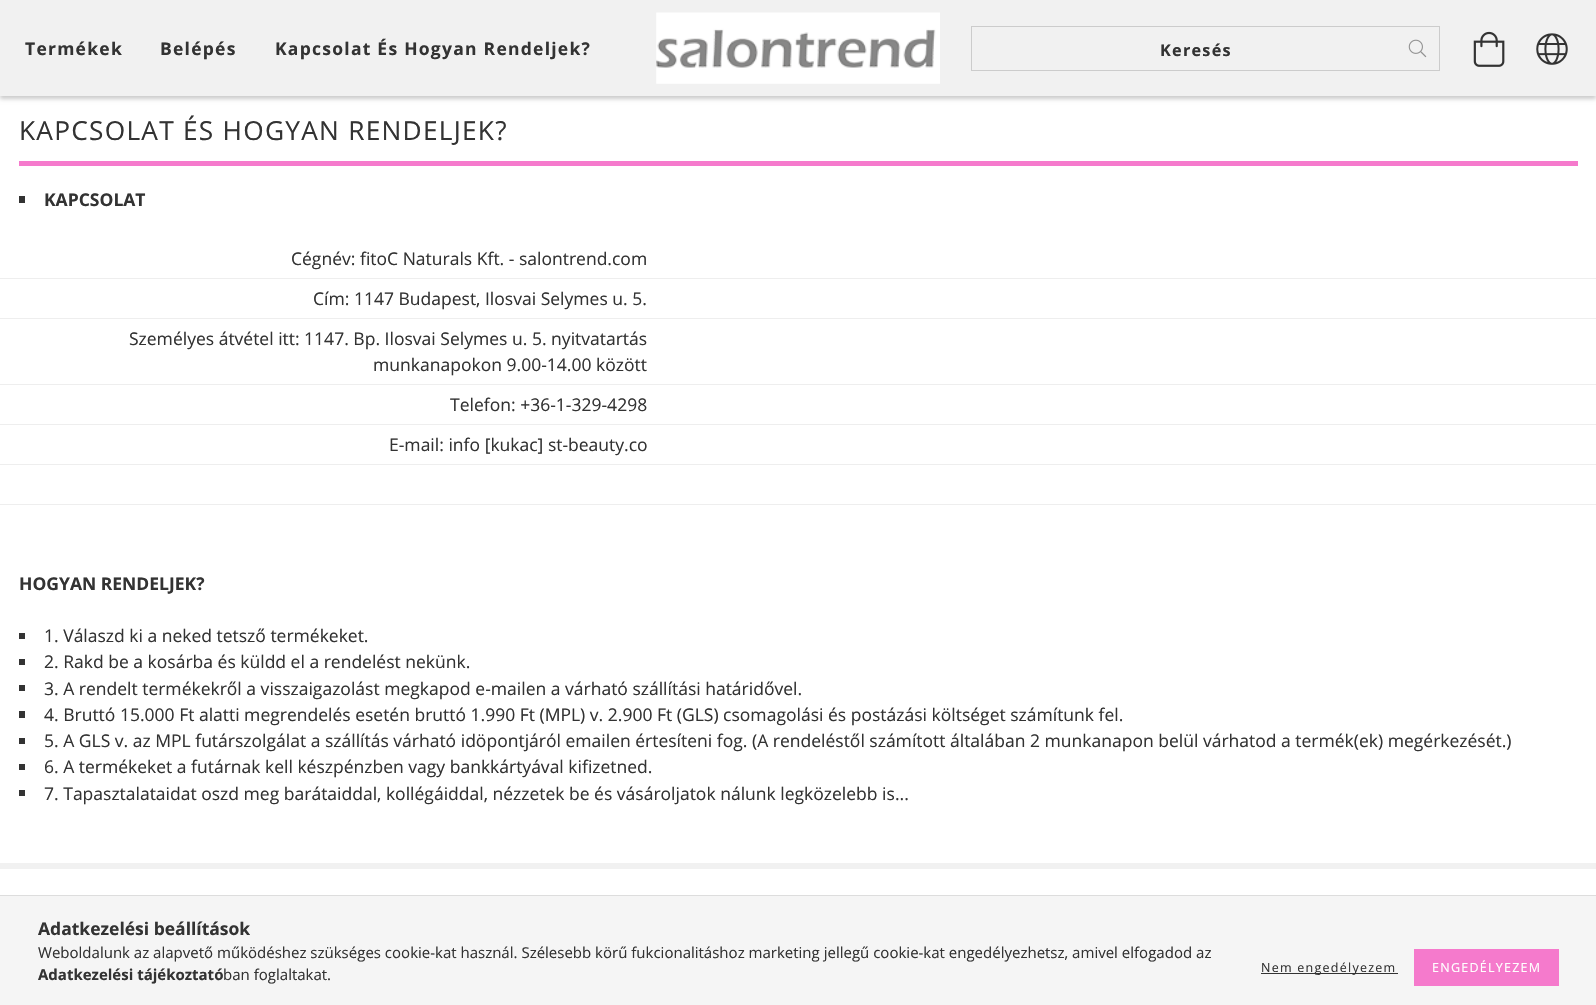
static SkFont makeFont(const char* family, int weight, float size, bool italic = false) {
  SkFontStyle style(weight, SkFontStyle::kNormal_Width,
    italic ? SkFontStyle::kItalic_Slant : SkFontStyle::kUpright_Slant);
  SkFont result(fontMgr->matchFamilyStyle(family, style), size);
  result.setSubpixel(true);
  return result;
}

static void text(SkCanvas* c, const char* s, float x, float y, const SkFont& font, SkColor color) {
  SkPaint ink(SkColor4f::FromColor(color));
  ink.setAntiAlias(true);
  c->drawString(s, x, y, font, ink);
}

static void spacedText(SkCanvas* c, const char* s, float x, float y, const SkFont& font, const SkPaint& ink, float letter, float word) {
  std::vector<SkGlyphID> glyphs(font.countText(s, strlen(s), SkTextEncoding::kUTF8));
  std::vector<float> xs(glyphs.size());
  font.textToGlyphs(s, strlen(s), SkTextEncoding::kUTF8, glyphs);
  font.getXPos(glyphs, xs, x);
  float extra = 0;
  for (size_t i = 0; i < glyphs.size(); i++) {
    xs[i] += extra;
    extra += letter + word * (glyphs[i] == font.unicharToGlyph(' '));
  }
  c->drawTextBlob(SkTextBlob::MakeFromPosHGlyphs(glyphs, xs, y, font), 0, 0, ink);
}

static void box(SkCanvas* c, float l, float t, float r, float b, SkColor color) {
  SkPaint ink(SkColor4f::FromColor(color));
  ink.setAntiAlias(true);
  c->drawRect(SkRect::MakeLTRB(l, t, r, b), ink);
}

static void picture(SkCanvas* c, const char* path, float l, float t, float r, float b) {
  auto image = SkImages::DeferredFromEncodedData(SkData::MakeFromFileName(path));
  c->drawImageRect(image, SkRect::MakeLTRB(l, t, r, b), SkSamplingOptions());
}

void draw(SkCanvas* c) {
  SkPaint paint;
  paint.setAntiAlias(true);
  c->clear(0xffffffff);
  paint.setColor(0x33000000);
  paint.setMaskFilter(SkMaskFilter::MakeBlur(kNormal_SkBlurStyle, 2));
  c->drawRect(SkRect::MakeLTRB(0, 3, 1596, 99), paint);
  paint.setMaskFilter(nullptr);
  box(c, 0, 0, 1596, 96, 0xfff1f1f1);
  SkFont face1 = makeFont("Open Sans", 700, 17.5f);
  paint.setColor(0xff333333);
  spacedText(c, "Termékek", 25, 55, face1, paint, 1.25f, 0);
  spacedText(c, "Belépés", 160, 55, face1, paint, 1.25f, 0);
  spacedText(c, "Kapcsolat És Hogyan Rendeljek?", 275, 55, face1, paint, 1.25f, 0);
  picture(c, "img_01.png", 656, 12, 940, 84);
  paint.setStyle(SkPaint::kStroke_Style);
  paint.setStrokeWidth(1);
  paint.setColor(0xffcccccc);
  c->drawRect(SkRect::MakeLTRB(971.5f, 26.5f, 1439.5f, 70.5f), paint);
  SkFont face2 = makeFont("Open Sans", 700, 16.25f);
  paint.setStyle(SkPaint::kFill_Style);
  paint.setColor(0xff333333);
  spacedText(c, "Keresés", 1160, 56, face2, paint, 1.25f, 0);
  picture(c, "img_02.png", 1408, 39, 1427, 58);
  picture(c, "img_03.png", 1473, 31, 1505, 67);
  picture(c, "img_04.png", 1536, 33, 1568, 65);
  SkFont face3 = makeFont("Open Sans", 400, 26.25f);
  spacedText(c, "KAPCSOLAT ÉS HOGYAN RENDELJEK?", 19, 140, face3, paint, 1.25f, 0);
  box(c, 19, 161, 1578, 166, 0xfff57acc);
  box(c, 19, 196, 25, 203, 0xff333333);
  text(c, "KAPCSOLAT", 44, 206, face1, 0xff333333);
  SkFont face4 = makeFont("Open Sans", 400, 17.5f);
  text(c, "Cégnév: fitoC Naturals Kft. - salontrend.com", 291, 265, face4, 0xff333333);
  box(c, 0, 278, 1596, 279, 0xffeeeeee);
  text(c, "Cím: 1147 Budapest, Ilosvai Selymes u. 5.", 313, 305, face4, 0xff333333);
  box(c, 0, 318, 1596, 319, 0xffeeeeee);
  text(c, "Személyes átvétel itt: 1147. Bp. Ilosvai Selymes u. 5. nyitvatartás", 129, 345, face4, 0xff333333);
  text(c, "munkanapokon 9.00-14.00 között", 373, 371, face4, 0xff333333);
  box(c, 0, 384, 1596, 385, 0xffeeeeee);
  text(c, "Telefon: +36-1-329-4298", 450, 411, face4, 0xff333333);
  box(c, 0, 424, 1596, 425, 0xffeeeeee);
  text(c, "E-mail: info [kukac] st-beauty.co", 389, 451, face4, 0xff333333);
  box(c, 0, 464, 1596, 465, 0xffeeeeee);
  box(c, 0, 504, 1596, 505, 0xffeeeeee);
  text(c, "HOGYAN RENDELJEK?", 19, 590, face1, 0xff333333);
  box(c, 19, 633, 25, 639, 0xff333333);
  text(c, "1. Válaszd ki a neked tetsző termékeket.", 44, 642, face4, 0xff333333);
  box(c, 19, 659, 25, 665, 0xff333333);
  text(c, "2. Rakd be a kosárba és küldd el a rendelést nekünk.", 44, 668, face4, 0xff333333);
  box(c, 19, 685, 25, 691, 0xff333333);
  text(c, "3. A rendelt termékekről a visszaigazolást megkapod e-mailen a várható szállítási határidővel.", 44, 695, face4, 0xff333333);
  box(c, 19, 711, 25, 718, 0xff333333);
  text(c, "4. Bruttó 15.000 Ft alatti megrendelés esetén bruttó 1.990 Ft (MPL) v. 2.900 Ft (GLS) csomagolási és postázási költséget számítunk fel.", 44, 721, face4, 0xff333333);
  box(c, 19, 738, 25, 744, 0xff333333);
  text(c, "5. A GLS v. az MPL futárszolgálat a szállítás várható idöpontjáról emailen értesíteni fog. (A rendeléstől számított általában 2 munkanapon belül várhatod a termék(ek) megérkezését.)", 44, 747, face4, 0xff333333);
  box(c, 19, 764, 25, 770, 0xff333333);
  text(c, "6. A termékeket a futárnak kell készpénzben vagy bankkártyával kifizetned.", 44, 773, face4, 0xff333333);
  box(c, 19, 790, 25, 796, 0xff333333);
  text(c, "7. Tapasztalataidat oszd meg barátaiddal, kollégáiddal, nézzetek be és vásároljatok nálunk legközelebb is...", 44, 800, face4, 0xff333333);
  box(c, 0, 863, 1596, 869, 0xfff1f1f1);
  box(c, 0, 896, 1596, 1005, 0xfff5f5f5);
  box(c, 0, 895, 1596, 896, 0xffdddddd);
  text(c, "Adatkezelési beállítások", 38, 935, face1, 0xff333333);
  SkFont face5 = makeFont("Open Sans", 400, 15);
  text(c, "Weboldalunk az alapvető működéshez szükséges cookie-kat használ. Szélesebb körű fukcionalitáshoz marketing jellegű cookie-kat engedélyezhetsz, amivel elfogadod az", 38, 958, face5, 0xff333333);
  SkFont face6 = makeFont("Open Sans", 700, 15);
  text(c, "Adatkezelési tájékoztató", 38, 980, face6, 0xff333333);
  text(c, "ban foglaltakat.", 223, 980, face5, 0xff333333);
  box(c, 1261, 973, 1398, 974, 0xff333333);
  SkFont face7 = makeFont("Open Sans", 400, 12.5f);
  spacedText(c, "Nem engedélyezem", 1261, 972, face7, paint, 1.25f, 0);
  box(c, 1414, 949, 1559, 986, 0xfff57acc);
  paint.setColor(0xffffffff);
  spacedText(c, "ENGEDÉLYEZEM", 1432, 972, face7, paint, 1.25f, 0);
}
